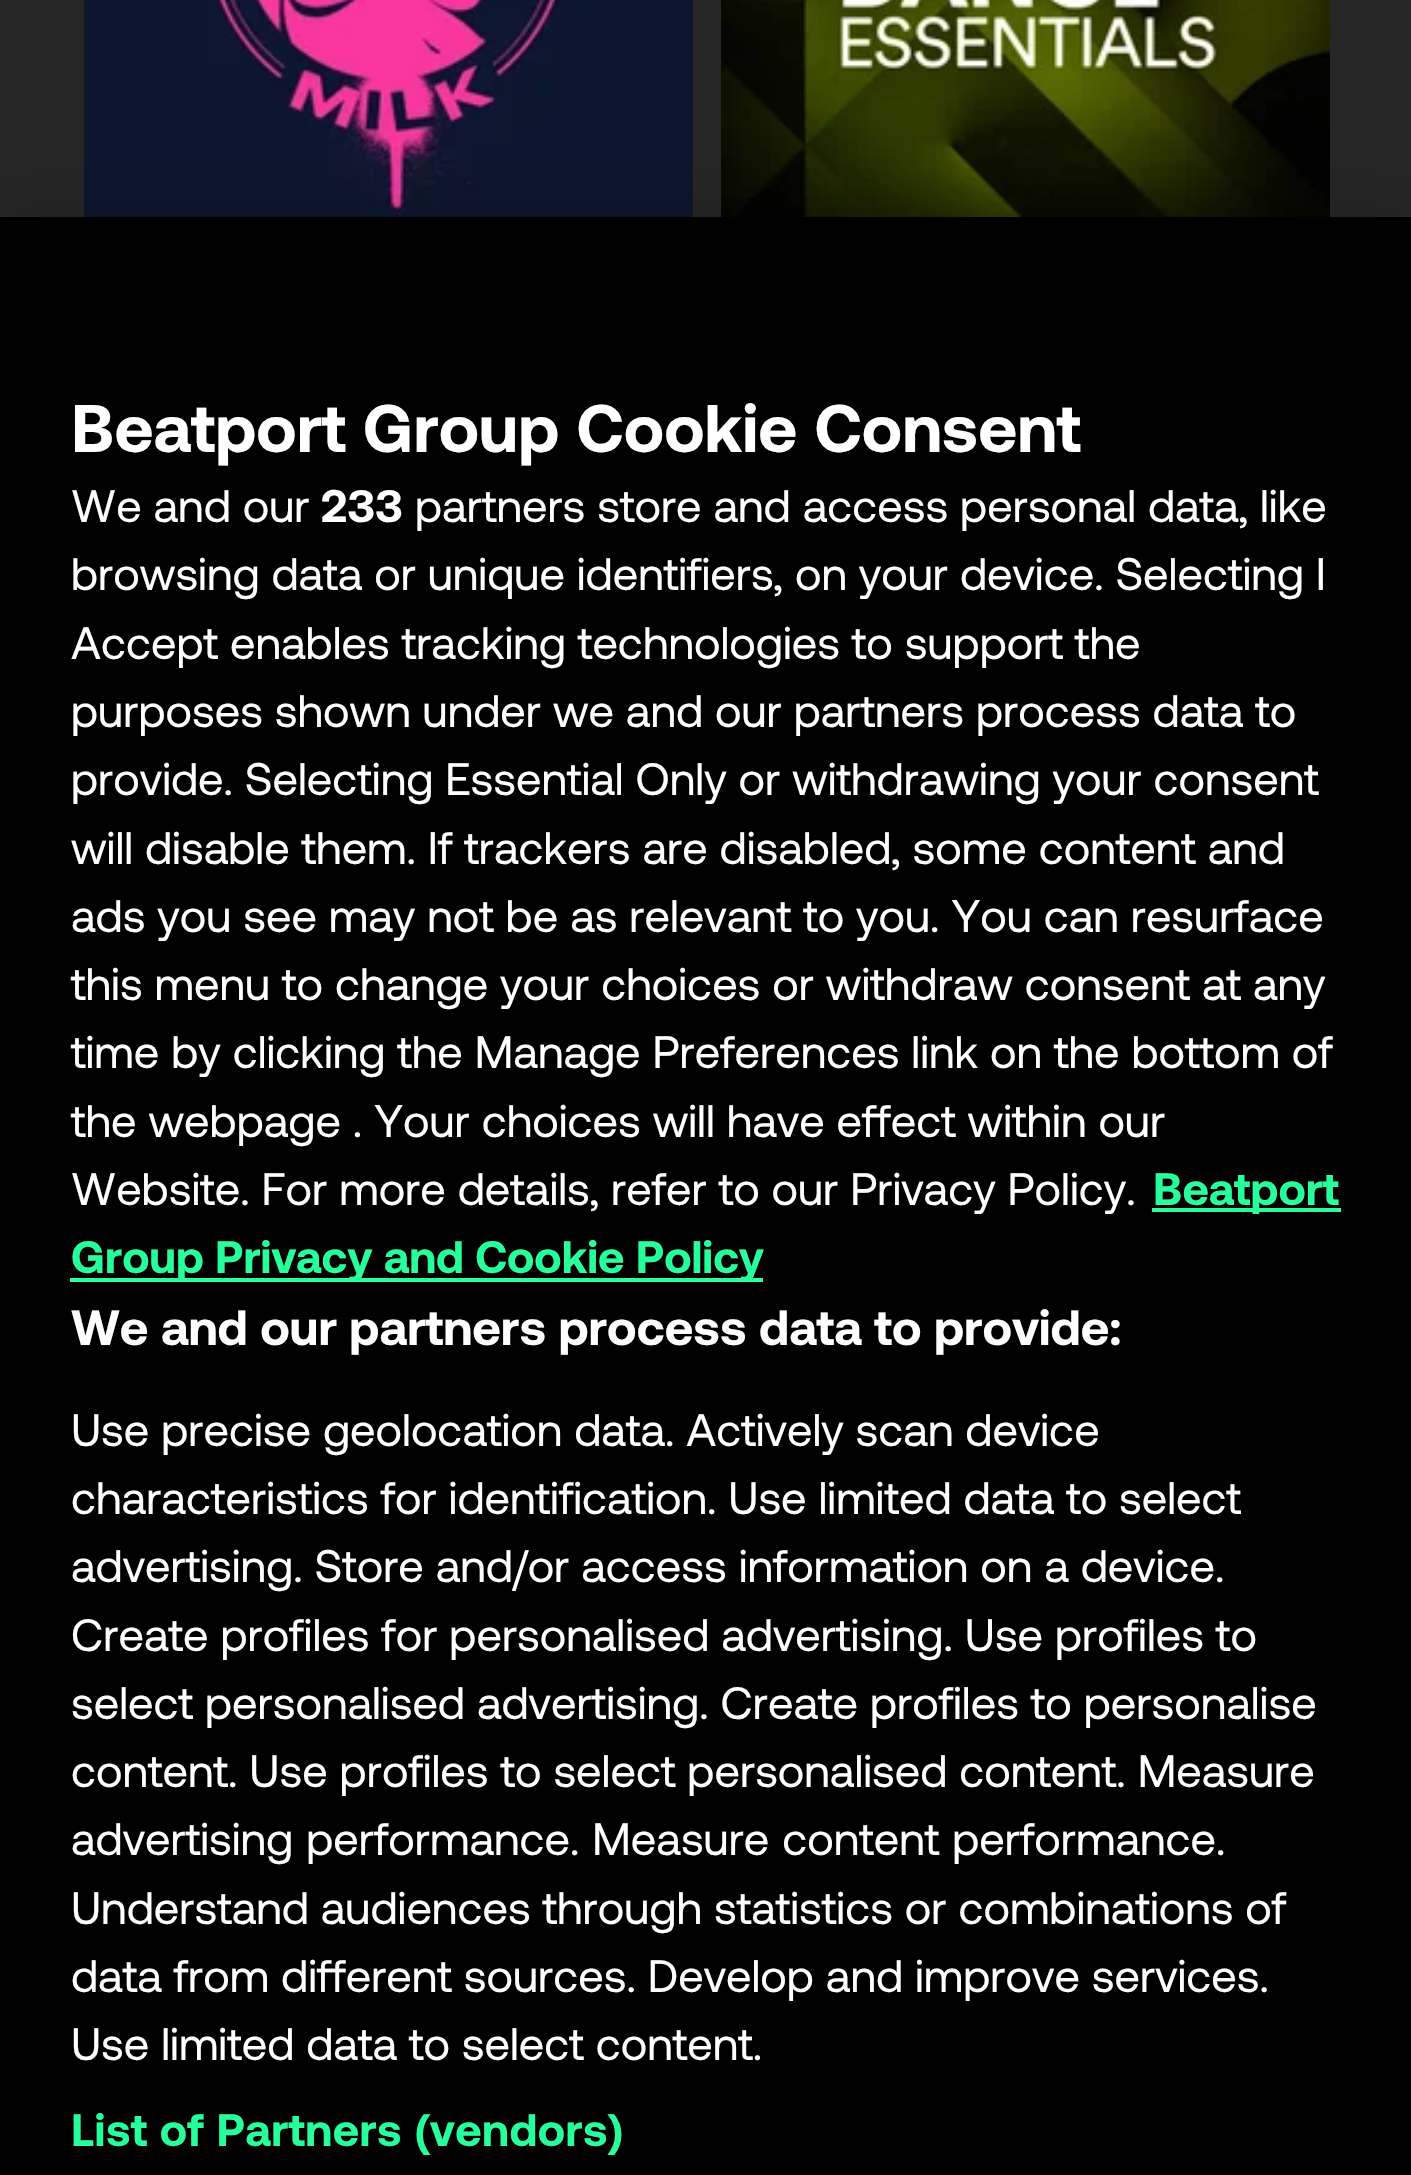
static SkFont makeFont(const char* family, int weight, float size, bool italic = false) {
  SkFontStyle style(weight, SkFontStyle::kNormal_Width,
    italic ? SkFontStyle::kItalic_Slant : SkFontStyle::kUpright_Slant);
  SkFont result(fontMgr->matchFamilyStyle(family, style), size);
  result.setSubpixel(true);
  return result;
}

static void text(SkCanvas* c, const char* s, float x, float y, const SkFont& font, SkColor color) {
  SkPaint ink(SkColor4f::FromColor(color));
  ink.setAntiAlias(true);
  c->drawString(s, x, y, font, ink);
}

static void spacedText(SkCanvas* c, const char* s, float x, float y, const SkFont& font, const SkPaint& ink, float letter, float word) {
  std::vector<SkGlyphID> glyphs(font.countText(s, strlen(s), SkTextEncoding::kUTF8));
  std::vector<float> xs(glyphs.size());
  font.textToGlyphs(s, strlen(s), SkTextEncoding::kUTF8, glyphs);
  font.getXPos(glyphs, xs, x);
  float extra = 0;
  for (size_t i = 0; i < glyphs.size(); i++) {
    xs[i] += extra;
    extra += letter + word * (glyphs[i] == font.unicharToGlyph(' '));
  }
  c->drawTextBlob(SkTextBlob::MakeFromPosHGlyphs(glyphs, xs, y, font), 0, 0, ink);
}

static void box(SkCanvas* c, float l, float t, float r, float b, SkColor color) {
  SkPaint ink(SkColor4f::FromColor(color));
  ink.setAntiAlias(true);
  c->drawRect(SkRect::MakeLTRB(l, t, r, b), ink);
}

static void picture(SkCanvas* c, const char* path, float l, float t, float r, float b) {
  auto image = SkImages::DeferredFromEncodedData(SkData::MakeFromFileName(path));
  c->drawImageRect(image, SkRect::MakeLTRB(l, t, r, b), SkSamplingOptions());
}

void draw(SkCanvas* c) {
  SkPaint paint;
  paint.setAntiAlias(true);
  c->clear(0xff262626);
  picture(c, "img_01.png", 84, 0, 693, 217);
  picture(c, "img_02.png", 721, 0, 1330, 217);
  paint.setColor(0x33000000);
  paint.setMaskFilter(SkMaskFilter::MakeBlur(kNormal_SkBlurStyle, 31.5f));
  c->drawRect(SkRect::MakeLTRB(0, 217, 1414, 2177), paint);
  paint.setMaskFilter(nullptr);
  box(c, 0, 217, 1411, 2175, 0xff000000);
  SkFont face1 = makeFont("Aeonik", 700, 67.25f);
  paint.setColor(0xffffffff);
  spacedText(c, "Beatport Group Cookie Consent", 71, 452, face1, paint, 0, 0.5f);
  SkFont face2 = makeFont("Aeonik", 400, 45.5f);
  text(c, "We and our", 71, 522, face2, 0xffffffff);
  SkFont face3 = makeFont("Aeonik", 700, 45.5f);
  text(c, "233", 321, 522, face3, 0xffffffff);
  text(c, "partners store and access personal data, like", 415, 522, face2, 0xffffffff);
  text(c, "browsing data or unique identifiers, on your device. Selecting I", 71, 590, face2, 0xffffffff);
  text(c, "Accept enables tracking technologies to support the", 71, 659, face2, 0xffffffff);
  text(c, "purposes shown under we and our partners process data to", 71, 727, face2, 0xffffffff);
  text(c, "provide. Selecting Essential Only or withdrawing your consent", 71, 795, face2, 0xffffffff);
  text(c, "will disable them. If trackers are disabled, some content and", 71, 864, face2, 0xffffffff);
  text(c, "ads you see may not be as relevant to you. You can resurface", 71, 932, face2, 0xffffffff);
  text(c, "this menu to change your choices or withdraw consent at any", 71, 1000, face2, 0xffffffff);
  text(c, "time by clicking the Manage Preferences link on the bottom of", 71, 1068, face2, 0xffffffff);
  text(c, "the webpage . Your choices will have effect within our", 71, 1137, face2, 0xffffffff);
  text(c, "Website. For more details, refer to our Privacy Policy.", 71, 1205, face2, 0xffffffff);
  box(c, 1152, 1208, 1341, 1212, 0xff27ff9c);
  text(c, "Beatport", 1153, 1205, face3, 0xff27ff9c);
  box(c, 70, 1278, 763, 1282, 0xff27ff9c);
  text(c, "Group Privacy and Cookie Policy", 71, 1273, face3, 0xff27ff9c);
  SkFont face4 = makeFont("Aeonik", 700, 49.25f);
  spacedText(c, "We and our partners process data to provide:", 71, 1345, face4, paint, 0, 0.25f);
  text(c, "Use precise geolocation data. Actively scan device", 71, 1446, face2, 0xffffffff);
  text(c, "characteristics for identification. Use limited data to select", 71, 1514, face2, 0xffffffff);
  text(c, "advertising. Store and/or access information on a device.", 71, 1582, face2, 0xffffffff);
  text(c, "Create profiles for personalised advertising. Use profiles to", 71, 1651, face2, 0xffffffff);
  text(c, "select personalised advertising. Create profiles to personalise", 71, 1719, face2, 0xffffffff);
  text(c, "content. Use profiles to select personalised content. Measure", 71, 1787, face2, 0xffffffff);
  spacedText(c, "advertising performance. Measure content performance.", 71, 1855, face2, paint, 0, 1);
  text(c, "Understand audiences through statistics or combinations of", 71, 1924, face2, 0xffffffff);
  text(c, "data from different sources. Develop and improve services.", 71, 1992, face2, 0xffffffff);
  text(c, "Use limited data to select content.", 71, 2060, face2, 0xffffffff);
  paint.setColor(0xff27ff9c);
  spacedText(c, "List of Partners (vendors)", 71, 2146, face3, paint, 0.45f, 0.5f);
}
